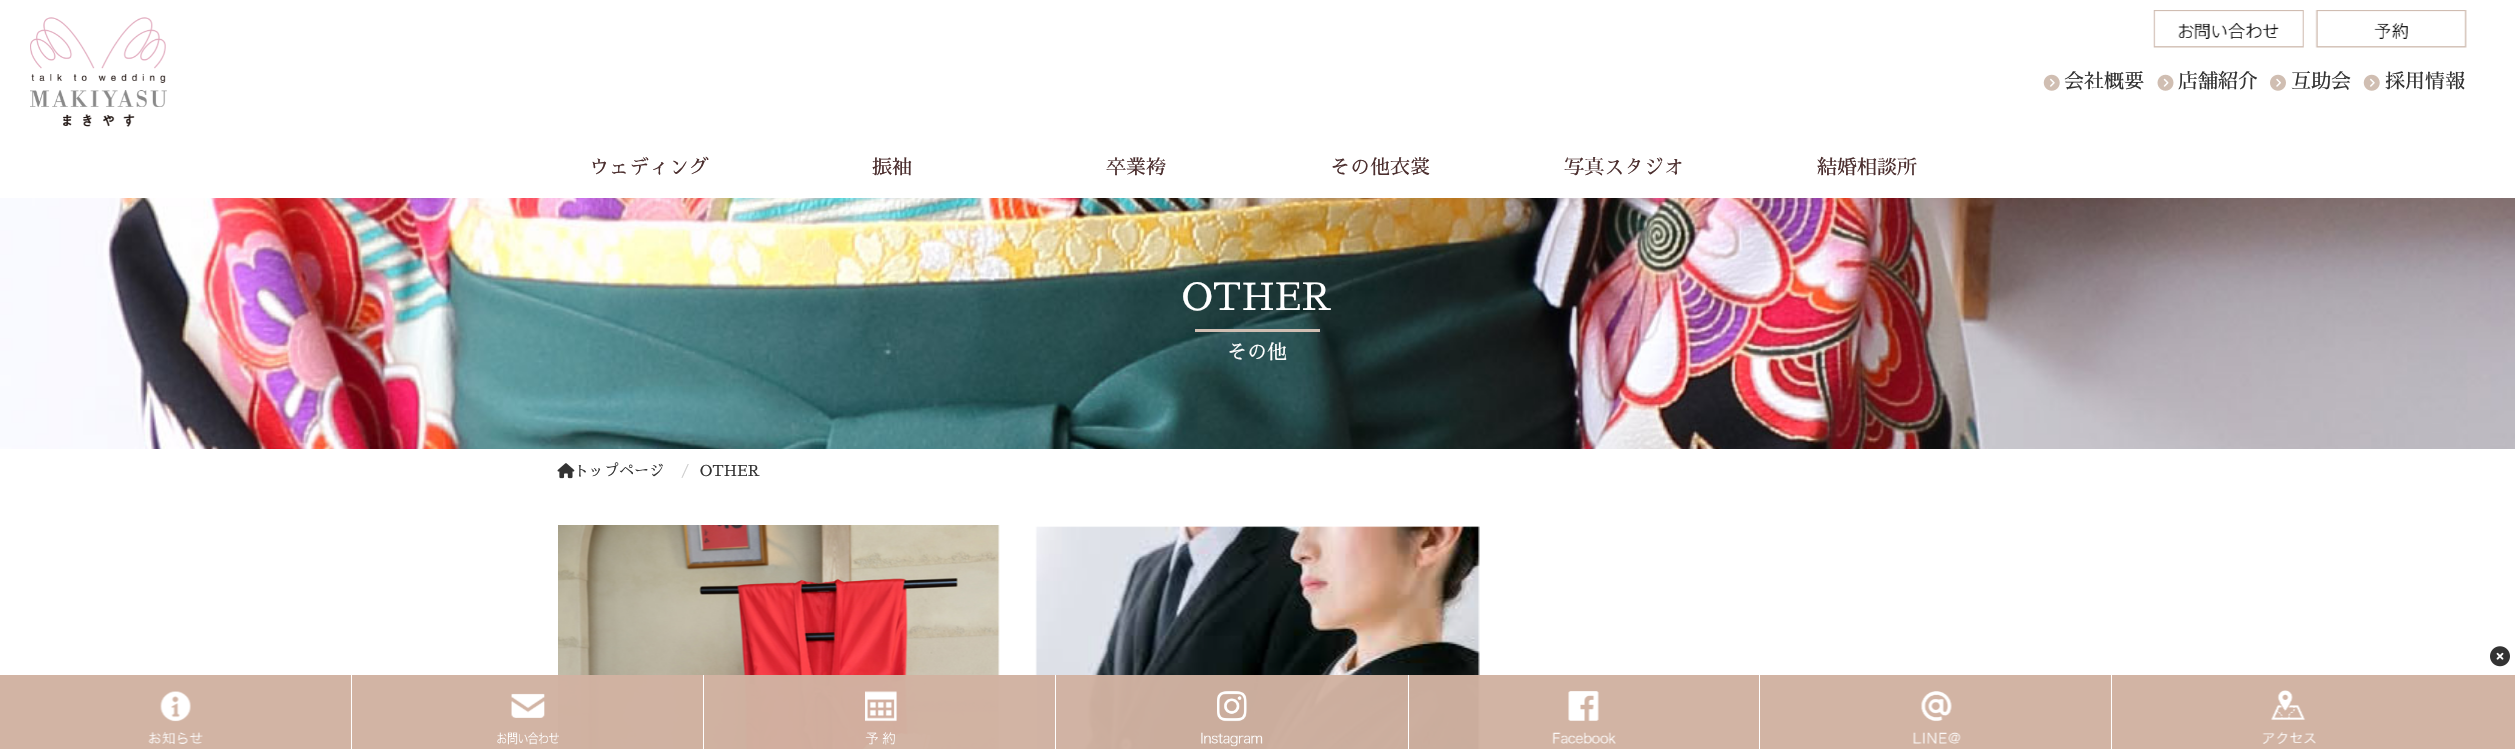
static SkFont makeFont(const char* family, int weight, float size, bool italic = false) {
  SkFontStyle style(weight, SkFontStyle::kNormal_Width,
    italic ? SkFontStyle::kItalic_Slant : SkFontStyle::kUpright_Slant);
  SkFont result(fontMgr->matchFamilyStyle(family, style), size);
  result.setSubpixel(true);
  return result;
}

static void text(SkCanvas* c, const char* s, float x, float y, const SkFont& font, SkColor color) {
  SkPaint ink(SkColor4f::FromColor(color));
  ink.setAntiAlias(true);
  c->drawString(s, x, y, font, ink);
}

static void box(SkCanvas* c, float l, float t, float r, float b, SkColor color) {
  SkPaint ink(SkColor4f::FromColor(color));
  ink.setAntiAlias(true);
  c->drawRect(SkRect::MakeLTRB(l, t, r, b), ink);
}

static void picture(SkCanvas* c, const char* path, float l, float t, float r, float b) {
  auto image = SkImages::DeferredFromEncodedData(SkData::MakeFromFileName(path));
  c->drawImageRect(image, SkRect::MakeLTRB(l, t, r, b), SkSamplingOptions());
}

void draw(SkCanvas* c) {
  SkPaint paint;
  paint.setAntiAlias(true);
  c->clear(0xffffffff);
  picture(c, "img_01.png", 2153, 10, 2304, 48);
  picture(c, "img_02.png", 2315, 10, 2467, 48);
  picture(c, "img_03.png", 30, 17, 167, 127);
  picture(c, "img_04.png", 2043, 74, 2060, 91);
  SkFont face1 = makeFont("Sawarabi Mincho", 400, 20);
  text(c, "会社概要", 2064, 88, face1, 0xff333333);
  picture(c, "img_05.png", 2157, 74, 2174, 91);
  text(c, "店舗紹介", 2178, 88, face1, 0xff333333);
  picture(c, "img_06.png", 2270, 74, 2286, 91);
  text(c, "互助会", 2291, 88, face1, 0xff333333);
  picture(c, "img_04.png", 2363, 74, 2380, 91);
  text(c, "採用情報", 2385, 88, face1, 0xff333333);
  text(c, "ウェディング", 589, 174, face1, 0xff4c2f2f);
  text(c, "振袖", 872, 174, face1, 0xff4c2f2f);
  text(c, "卒業袴", 1106, 174, face1, 0xff4c2f2f);
  text(c, "その他衣裳", 1330, 174, face1, 0xff4c2f2f);
  text(c, "写真スタジオ", 1564, 174, face1, 0xff4c2f2f);
  text(c, "結婚相談所", 1817, 174, face1, 0xff4c2f2f);
  picture(c, "img_07.png", 0, 198, 2515, 449);
  SkFont face2 = makeFont("Sawarabi Mincho", 400, 37.5f);
  text(c, "OTHER", 1182, 310, face2, 0xffffffff);
  box(c, 1195, 329, 1320, 332, 0xffd0beb2);
  text(c, "その他", 1227, 359, face1, 0xffffffff);
  picture(c, "img_08.png", 557, 463, 575, 479);
  SkFont face3 = makeFont("Sawarabi Mincho", 400, 15);
  text(c, "トップページ", 574, 476, face3, 0xff333333);
  text(c, "/", 681, 476, face3, 0xffcccccc);
  text(c, "OTHER", 700, 476, face3, 0xff333333);
  picture(c, "img_09.png", 558, 525, 1000, 749);
  picture(c, "img_10.png", 1035, 526, 1480, 749);
  picture(c, "img_11.png", 2490, 646, 2510, 667);
  box(c, 0, 675, 2515, 749, 0xf7d1b2a1);
  box(c, 351, 675, 352, 749, 0xffffffff);
  picture(c, "img_12.png", 148, 691, 203, 744);
  box(c, 703, 675, 704, 749, 0xffffffff);
  picture(c, "img_13.png", 497, 693, 559, 745);
  box(c, 1055, 675, 1056, 749, 0xffffffff);
  picture(c, "img_14.png", 865, 691, 897, 745);
  box(c, 1408, 675, 1409, 749, 0xffffffff);
  picture(c, "img_15.png", 1201, 691, 1263, 747);
  box(c, 1759, 675, 1760, 749, 0xffffffff);
  picture(c, "img_16.png", 1552, 691, 1616, 744);
  box(c, 2111, 675, 2112, 749, 0xffffffff);
  picture(c, "img_17.png", 1913, 691, 1961, 744);
  picture(c, "img_18.png", 2262, 690, 2316, 744);
}
